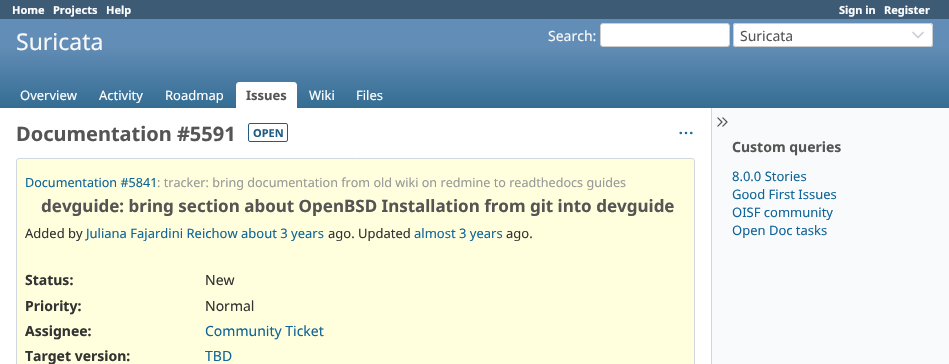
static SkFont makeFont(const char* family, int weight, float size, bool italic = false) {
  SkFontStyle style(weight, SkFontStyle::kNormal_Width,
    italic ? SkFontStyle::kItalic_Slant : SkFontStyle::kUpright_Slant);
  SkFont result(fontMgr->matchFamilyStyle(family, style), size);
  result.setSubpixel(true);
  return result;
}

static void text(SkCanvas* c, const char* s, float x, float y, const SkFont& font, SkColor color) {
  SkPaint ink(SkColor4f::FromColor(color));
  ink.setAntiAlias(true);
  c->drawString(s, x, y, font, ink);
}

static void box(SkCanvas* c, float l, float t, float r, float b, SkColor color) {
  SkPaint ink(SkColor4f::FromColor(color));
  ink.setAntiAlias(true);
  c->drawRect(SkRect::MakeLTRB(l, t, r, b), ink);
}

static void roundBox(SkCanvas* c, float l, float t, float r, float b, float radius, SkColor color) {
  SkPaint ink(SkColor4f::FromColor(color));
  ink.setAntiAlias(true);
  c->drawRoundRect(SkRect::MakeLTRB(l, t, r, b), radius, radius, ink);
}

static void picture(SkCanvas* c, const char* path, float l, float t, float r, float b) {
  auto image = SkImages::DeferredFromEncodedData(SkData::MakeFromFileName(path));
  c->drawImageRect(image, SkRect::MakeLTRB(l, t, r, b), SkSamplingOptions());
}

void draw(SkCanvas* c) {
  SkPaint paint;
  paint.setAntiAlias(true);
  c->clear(0xffffffff);
  box(c, 0, 0, 949, 19, 0xff3e5b76);
  SkFont face1 = makeFont("Noto Sans", 700, 11);
  text(c, "Home", 12, 14, face1, 0xffffffff);
  text(c, "Projects", 53, 14, face1, 0xffffffff);
  text(c, "Help", 106, 14, face1, 0xffffffff);
  text(c, "Sign in", 839, 14, face1, 0xffffffff);
  text(c, "Register", 884, 14, face1, 0xffffffff);
  {
    const SkColor colors[] = {0xff628db6, 0xff356d92};
    const float stops[] = {0.3f, 1};
    const SkPoint ends[] = {{475, 19}, {475, 108}};
    paint.setShader(SkGradientShader::MakeLinear(ends, colors, stops, 2, SkTileMode::kClamp));
    paint.setAlpha(255);
  }
  c->drawRect(SkRect::MakeLTRB(0, 19, 949, 108), paint);
  SkFont face2 = makeFont("Noto Sans", 400, 23);
  text(c, "Suricata", 16, 50, face2, 0xfff8f8f8);
  SkFont face3 = makeFont("Noto Sans", 400, 14);
  text(c, "Search:", 548, 41, face3, 0xfff8f8f8);
  paint.setShader(nullptr);
  paint.setColor(0xffffffff);
  c->drawRoundRect(SkRect::MakeLTRB(600.5f, 23.5f, 729.5f, 46.5f), 2.5f, 2.5f, paint);
  paint.setStyle(SkPaint::kStroke_Style);
  paint.setStrokeWidth(1);
  paint.setColor(0xffcccccc);
  c->drawRoundRect(SkRect::MakeLTRB(600.5f, 23.5f, 729.5f, 46.5f), 2.5f, 2.5f, paint);
  roundBox(c, 733, 23, 933, 47, 3, 0xffffffff);
  paint.setStrokeWidth(1.7f);
  paint.setStrokeCap(SkPaint::kRound_Cap);
  paint.setStrokeJoin(SkPaint::kRound_Join);
  paint.setColor(0xffccccdd);
  c->drawPath(SkPathBuilder().moveTo(913, 32.5f).lineTo(918, 37.5f).lineTo(923, 32.5f).detach(), paint);
  paint.setStrokeWidth(1);
  paint.setStrokeCap(SkPaint::kButt_Cap);
  paint.setStrokeJoin(SkPaint::kMiter_Join);
  paint.setColor(0xffcccccc);
  c->drawRoundRect(SkRect::MakeLTRB(733.5f, 23.5f, 932.5f, 46.5f), 2.5f, 2.5f, paint);
  text(c, "Suricata", 740, 41, face3, 0xff555555);
  SkFont face4 = makeFont("Noto Sans", 400, 13);
  text(c, "Overview", 20, 100, face4, 0xffffffff);
  text(c, "Activity", 99, 100, face4, 0xffffffff);
  text(c, "Roadmap", 165, 100, face4, 0xffffffff);
  paint.setStyle(SkPaint::kFill_Style);
  paint.setColor(0xffffffff);
  c->drawPath(SkPathBuilder().moveTo(239, 82).lineTo(294, 82).cubicTo(295.5f, 82, 297, 83.5f, 297, 85).lineTo(297, 108).lineTo(236, 108).lineTo(236, 85).cubicTo(236, 83.5f, 237.5f, 82, 239, 82).close().detach(), paint);
  SkFont face5 = makeFont("Noto Sans", 700, 13);
  text(c, "Issues", 246, 100, face5, 0xff555555);
  text(c, "Wiki", 309, 100, face4, 0xffffffff);
  text(c, "Files", 356, 100, face4, 0xffffffff);
  SkFont face6 = makeFont("Noto Sans", 700, 20);
  text(c, "Documentation #5591", 16, 141, face6, 0xff555555);
  paint.setStyle(SkPaint::kStroke_Style);
  paint.setColor(0xff205d86);
  c->drawRoundRect(SkRect::MakeLTRB(248.5f, 123.5f, 287.5f, 141.5f), 1.5f, 1.5f, paint);
  text(c, "OPEN", 253, 137, face1, 0xff205d86);
  picture(c, "img_01.png", 679, 131, 693, 135);
  paint.setStyle(SkPaint::kFill_Style);
  paint.setColor(0xffffffdd);
  c->drawRoundRect(SkRect::MakeLTRB(16.5f, 158.5f, 694.5f, 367.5f), 2.5f, 2.5f, paint);
  paint.setStyle(SkPaint::kStroke_Style);
  paint.setColor(0xffd0d7de);
  c->drawRoundRect(SkRect::MakeLTRB(16.5f, 158.5f, 694.5f, 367.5f), 2.5f, 2.5f, paint);
  SkFont face7 = makeFont("Noto Sans", 400, 12.6f);
  text(c, "Documentation #5841", 25, 187, face7, 0xff116699);
  text(c, ": tracker: bring documentation from old wiki on redmine to readthedocs guides", 157, 187, face7, 0xff999999);
  SkFont face8 = makeFont("Noto Sans", 700, 17);
  text(c, "devguide: bring section about OpenBSD Installation from git into devguide", 41, 212, face8, 0xff555555);
  text(c, "Added by", 25, 238, face4, 0xff333333);
  text(c, "Juliana Fajardini Reichow about 3 years", 86, 238, face4, 0xff116699);
  text(c, "ago. Updated", 328, 238, face4, 0xff333333);
  text(c, "almost 3 years", 414, 238, face4, 0xff116699);
  text(c, "ago.", 506, 238, face4, 0xff333333);
  SkFont face9 = makeFont("Noto Sans", 700, 14);
  text(c, "Status:", 25, 285, face9, 0xff333333);
  text(c, "New", 205, 285, face3, 0xff333333);
  text(c, "Priority:", 25, 311, face9, 0xff333333);
  text(c, "Normal", 205, 311, face3, 0xff333333);
  text(c, "Assignee:", 25, 336, face9, 0xff333333);
  text(c, "Community Ticket", 205, 336, face3, 0xff116699);
  text(c, "Target version:", 25, 361, face9, 0xff333333);
  text(c, "TBD", 205, 361, face3, 0xff116699);
  box(c, 712, 108, 949, 364, 0xfff9fafb);
  box(c, 711, 108, 712, 364, 0xffd0d7de);
  picture(c, "img_02.png", 717, 117, 728, 127);
  text(c, "Custom queries", 732, 152, face9, 0xff555555);
  text(c, "8.0.0 Stories", 732, 181, face4, 0xff116699);
  text(c, "Good First Issues", 732, 199, face4, 0xff116699);
  text(c, "OISF community", 732, 217, face4, 0xff116699);
  text(c, "Open Doc tasks", 732, 235, face4, 0xff116699);
}
